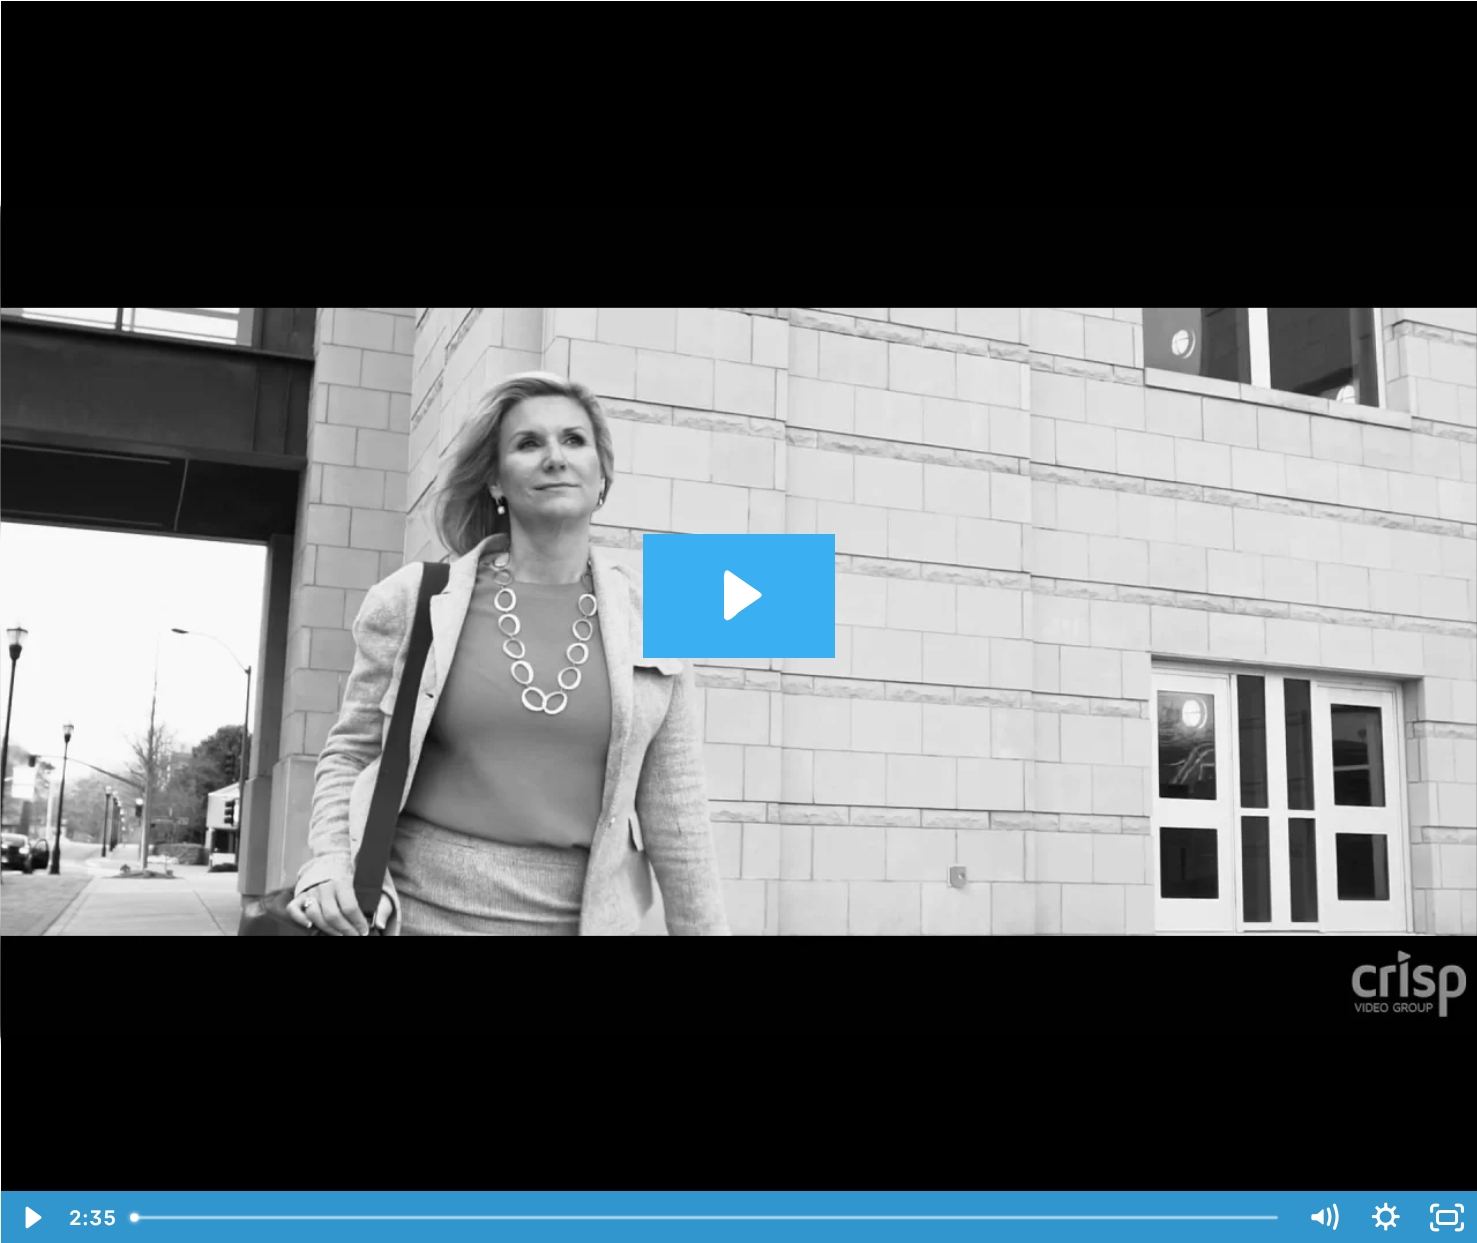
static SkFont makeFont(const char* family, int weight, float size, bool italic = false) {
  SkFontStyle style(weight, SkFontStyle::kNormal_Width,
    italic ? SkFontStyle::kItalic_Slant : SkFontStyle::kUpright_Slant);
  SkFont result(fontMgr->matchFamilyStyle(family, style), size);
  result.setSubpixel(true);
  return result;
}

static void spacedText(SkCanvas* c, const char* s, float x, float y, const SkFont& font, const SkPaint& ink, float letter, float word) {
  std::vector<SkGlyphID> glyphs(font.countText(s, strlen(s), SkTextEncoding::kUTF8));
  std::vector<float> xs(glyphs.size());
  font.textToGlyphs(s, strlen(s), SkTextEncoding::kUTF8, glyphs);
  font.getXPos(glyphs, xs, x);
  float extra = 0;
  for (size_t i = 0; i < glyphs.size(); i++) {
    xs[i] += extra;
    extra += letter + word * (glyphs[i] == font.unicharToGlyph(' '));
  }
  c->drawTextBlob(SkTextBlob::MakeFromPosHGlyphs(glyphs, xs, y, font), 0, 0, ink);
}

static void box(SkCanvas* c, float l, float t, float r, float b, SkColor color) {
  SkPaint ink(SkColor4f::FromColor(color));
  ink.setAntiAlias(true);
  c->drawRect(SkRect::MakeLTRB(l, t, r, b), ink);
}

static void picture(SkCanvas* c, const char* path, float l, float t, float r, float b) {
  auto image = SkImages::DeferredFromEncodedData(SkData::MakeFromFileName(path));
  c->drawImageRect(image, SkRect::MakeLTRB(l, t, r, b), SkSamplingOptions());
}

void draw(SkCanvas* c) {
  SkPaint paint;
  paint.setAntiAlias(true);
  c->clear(0xffffffff);
  picture(c, "img_01.png", 0, 198, 1, 1046);
  box(c, 1, 1, 1477, 1191, 0xff000000);
  picture(c, "img_03.png", 0, 201, 1, 1043);
  picture(c, "img_02.png", 0, 206, 1477, 1038);
  box(c, 643, 534, 835, 658, 0xff3aaff2);
  paint.setColor(0xffffffff);
  c->drawPath(SkPathBuilder(SkPathFillType::kEvenOdd).moveTo(729, 571).cubicTo(723, 567, 724, 580, 724, 581).lineTo(724, 618).lineTo(726, 620).cubicTo(729, 622, 737, 614, 739, 612).lineTo(755, 601).cubicTo(764, 595, 764, 595, 755, 589).close().detach(), paint);
  box(c, 1, 1191, 1477, 1243, 0xff3195ce);
  picture(c, "img_04.png", 25, 1206, 42, 1229);
  SkFont face1 = makeFont("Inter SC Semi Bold", 600, 20);
  spacedText(c, "2:35", 69, 1225, face1, paint, 1, 0);
  picture(c, "img_05.png", 126, 1209, 1279, 1226);
  picture(c, "img_06.png", 1311, 1203, 1339, 1230);
  picture(c, "img_07.png", 1371, 1202, 1400, 1231);
  picture(c, "img_08.png", 1430, 1203, 1464, 1232);
}
